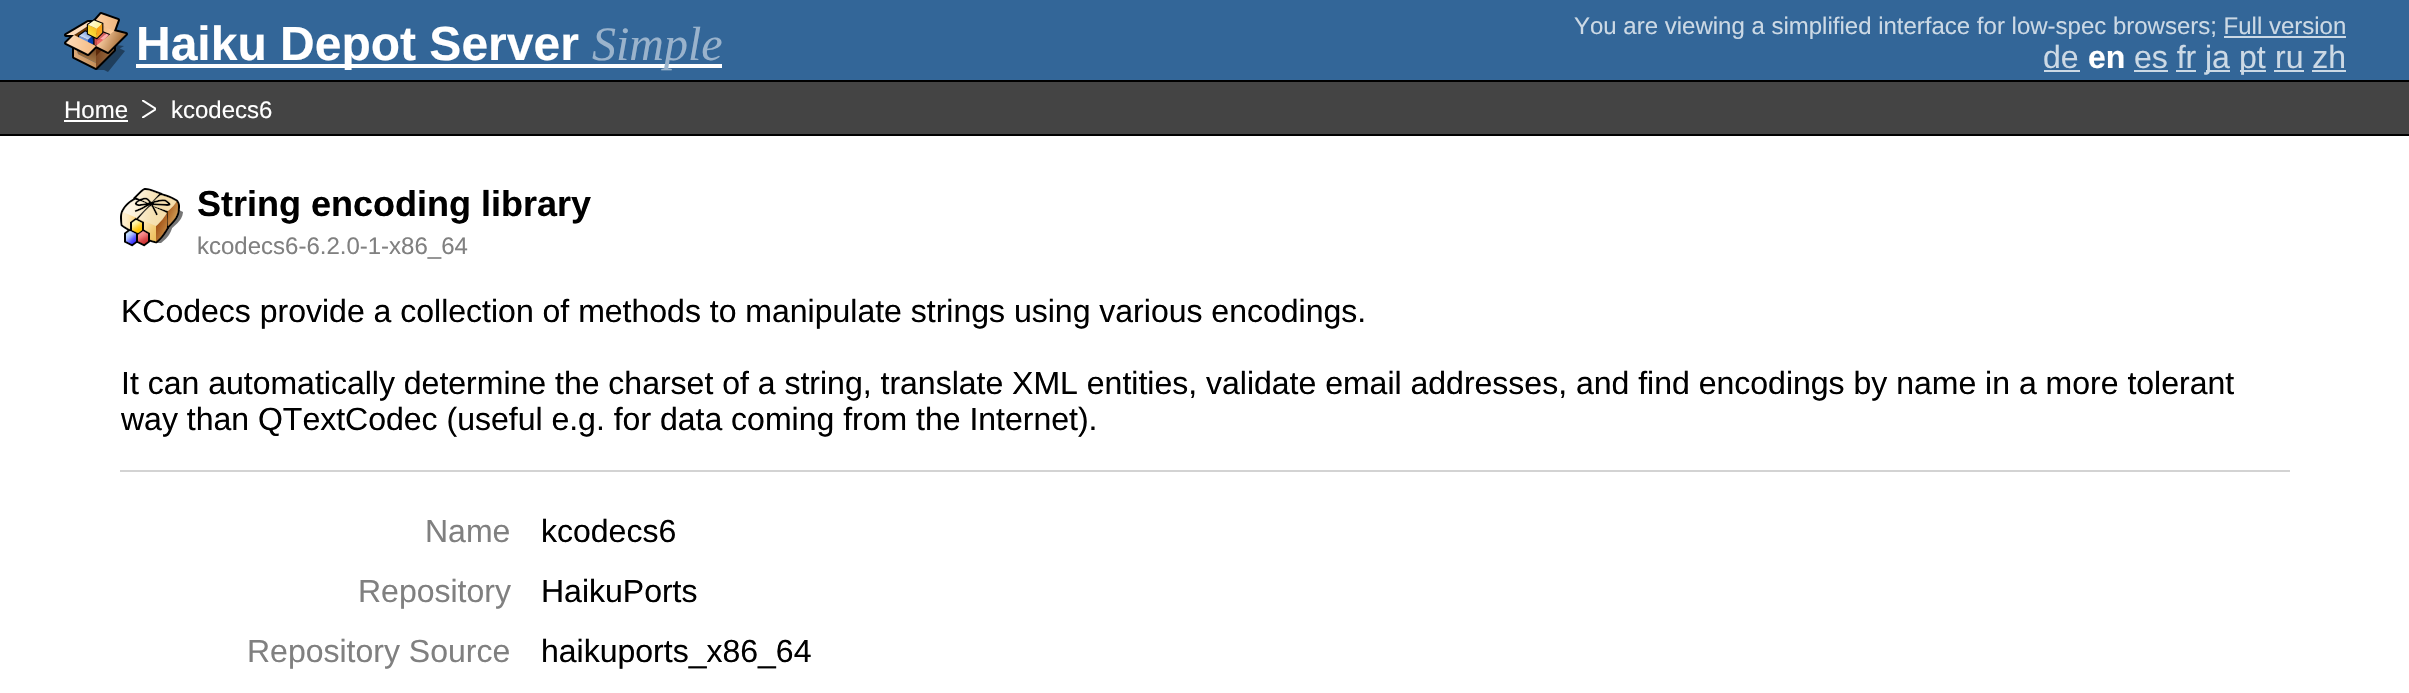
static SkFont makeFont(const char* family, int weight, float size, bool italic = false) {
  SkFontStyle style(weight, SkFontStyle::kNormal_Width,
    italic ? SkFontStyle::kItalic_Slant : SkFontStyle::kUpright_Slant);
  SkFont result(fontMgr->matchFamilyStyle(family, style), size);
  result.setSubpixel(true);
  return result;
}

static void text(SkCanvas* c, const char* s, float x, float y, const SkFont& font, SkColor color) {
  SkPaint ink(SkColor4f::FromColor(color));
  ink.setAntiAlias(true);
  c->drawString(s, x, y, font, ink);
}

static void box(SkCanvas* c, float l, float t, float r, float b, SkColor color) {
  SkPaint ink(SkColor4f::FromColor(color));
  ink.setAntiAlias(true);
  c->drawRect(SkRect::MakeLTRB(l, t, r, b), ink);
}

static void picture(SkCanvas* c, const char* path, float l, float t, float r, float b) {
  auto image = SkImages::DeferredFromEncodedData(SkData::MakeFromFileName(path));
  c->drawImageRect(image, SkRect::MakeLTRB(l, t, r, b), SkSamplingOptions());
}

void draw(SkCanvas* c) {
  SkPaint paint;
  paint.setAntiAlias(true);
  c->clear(0xffffffff);
  box(c, 0, 0, 2409, 80, 0xff336698);
  box(c, 0, 80, 2409, 82, 0xff000000);
  picture(c, "img_01.png", 64, 12, 128, 72);
  box(c, 136, 64, 722, 68, 0xffffffff);
  SkFont face1 = makeFont("Liberation Sans", 700, 48);
  text(c, "Haiku Depot Server", 136, 60, face1, 0xffffffff);
  SkFont face2 = makeFont("Liberation Serif", 400, 48, true);
  text(c, "Simple", 592, 60, face2, 0xff9ab3cc);
  SkFont face3 = makeFont("Liberation Sans", 400, 24);
  text(c, "You are viewing a simplified interface for low-spec browsers; Full version", 1574, 34, face3, 0xffccd9e5);
  box(c, 2224, 36, 2346, 38, 0xffccd9e5);
  SkFont face4 = makeFont("Liberation Sans", 400, 32);
  text(c, "de", 2043, 68, face4, 0xffccd9e5);
  box(c, 2044, 70, 2080, 72, 0xffccd9e5);
  SkFont face5 = makeFont("Liberation Sans", 700, 32);
  text(c, "en", 2088, 68, face5, 0xffffffff);
  text(c, "es fr", 2134, 68, face4, 0xffccd9e5);
  box(c, 2134, 70, 2168, 72, 0xffccd9e5);
  box(c, 2176, 70, 2196, 72, 0xffccd9e5);
  box(c, 2206, 70, 2230, 72, 0xffccd9e5);
  text(c, "ja", 2205, 68, face4, 0xffccd9e5);
  box(c, 2240, 70, 2266, 72, 0xffccd9e5);
  text(c, "pt", 2239, 68, face4, 0xffccd9e5);
  box(c, 2274, 70, 2304, 72, 0xffccd9e5);
  text(c, "ru zh", 2275, 68, face4, 0xffccd9e5);
  box(c, 2312, 70, 2346, 72, 0xffccd9e5);
  box(c, 0, 82, 2409, 134, 0xff444444);
  box(c, 0, 134, 2409, 136, 0xff000000);
  text(c, "Home", 64, 118, face3, 0xffffffff);
  box(c, 64, 120, 128, 122, 0xffffffff);
  text(c, "kcodecs6", 171, 118, face3, 0xffffffff);
  c->save();
  c->clipRect(SkRect::MakeLTRB(142, 100, 156, 118));
  paint.setStyle(SkPaint::kStroke_Style);
  paint.setStrokeWidth(2);
  paint.setColor(0xffffffff);
  c->drawPath(SkPathBuilder().moveTo(142, 118).lineTo(156, 109).lineTo(142, 100).detach(), paint);
  c->restore();
  picture(c, "img_02.png", 120, 188, 183, 247);
  SkFont face6 = makeFont("Liberation Sans", 700, 36);
  text(c, "String encoding library", 197, 216, face6, 0xff000000);
  text(c, "kcodecs6-6.2.0-1-x86_64", 197, 254, face3, 0xff808080);
  text(c, "KCodecs provide a collection of methods to manipulate strings using various encodings.", 121, 322, face4, 0xff000000);
  text(c, "It can automatically determine the charset of a string, translate XML entities, validate email addresses, and find encodings by name in a more tolerant", 121, 394, face4, 0xff000000);
  text(c, "way than QTextCodec (useful e.g. for data coming from the Internet).", 121, 430, face4, 0xff000000);
  box(c, 120, 470, 2290, 472, 0xffd3d3d3);
  text(c, "Name", 425, 542, face4, 0xff808080);
  text(c, "kcodecs6", 541, 542, face4, 0xff000000);
  text(c, "Repository", 358, 602, face4, 0xff808080);
  text(c, "HaikuPorts", 541, 602, face4, 0xff000000);
  text(c, "Repository Source", 247, 662, face4, 0xff808080);
  text(c, "haikuports_x86_64", 541, 662, face4, 0xff000000);
}
